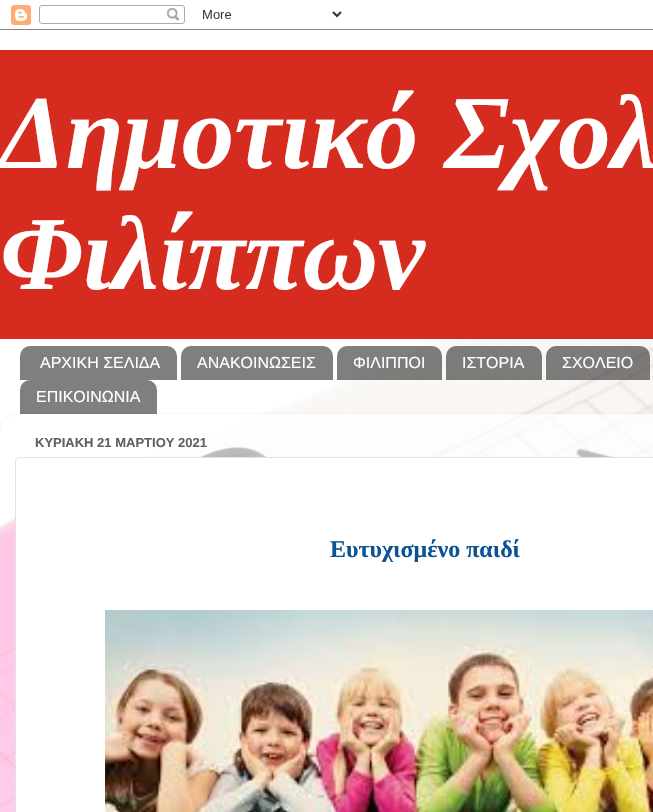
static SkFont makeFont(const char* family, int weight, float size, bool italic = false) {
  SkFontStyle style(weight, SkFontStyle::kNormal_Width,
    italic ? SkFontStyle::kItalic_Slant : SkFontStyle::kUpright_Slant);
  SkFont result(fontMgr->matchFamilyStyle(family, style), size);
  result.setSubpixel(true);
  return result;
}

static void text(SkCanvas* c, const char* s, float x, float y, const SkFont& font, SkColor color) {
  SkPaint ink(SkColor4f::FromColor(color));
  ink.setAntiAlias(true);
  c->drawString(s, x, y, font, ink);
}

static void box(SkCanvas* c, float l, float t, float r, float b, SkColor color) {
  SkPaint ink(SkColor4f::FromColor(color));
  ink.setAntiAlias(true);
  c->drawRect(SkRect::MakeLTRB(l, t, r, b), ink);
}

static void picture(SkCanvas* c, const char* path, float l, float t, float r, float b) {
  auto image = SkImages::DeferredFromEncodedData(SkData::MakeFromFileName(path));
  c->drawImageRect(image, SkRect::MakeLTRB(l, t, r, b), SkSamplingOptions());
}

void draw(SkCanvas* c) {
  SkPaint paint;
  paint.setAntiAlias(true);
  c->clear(0xffffffff);
  picture(c, "img_01.png", 0, 0, 653, 812);
  picture(c, "img_02.png", 0, 5, 653, 30);
  box(c, 0, 50, 653, 339, 0xffd52c1f);
  SkFont face1 = makeFont("Liberation Serif", 700, 105, true);
  text(c, "Δημοτικό Σχολ", 0, 168, face1, 0xffffffff);
  text(c, "Φιλίππων", 0, 289, face1, 0xffffffff);
  picture(c, "img_03.png", 20, 346, 177, 380);
  SkFont face2 = makeFont("Liberation Sans", 400, 16);
  text(c, "ΑΡΧΙΚΗ ΣΕΛΙΔΑ", 40, 368, face2, 0xffffffff);
  picture(c, "img_04.png", 181, 346, 333, 380);
  text(c, "ΑΝΑΚΟΙΝΩΣΕΙΣ", 197, 368, face2, 0xffffffff);
  picture(c, "img_05.png", 337, 346, 442, 380);
  text(c, "ΦΙΛΙΠΠΟΙ", 353, 368, face2, 0xffffffff);
  picture(c, "img_06.png", 446, 346, 542, 380);
  text(c, "ΙΣΤΟΡΙΑ", 462, 368, face2, 0xffffffff);
  picture(c, "img_07.png", 546, 346, 650, 380);
  text(c, "ΣΧΟΛΕΙΟ", 562, 368, face2, 0xffffffff);
  picture(c, "img_08.png", 20, 380, 157, 414);
  text(c, "ΕΠΙΚΟΙΝΩΝΙΑ", 36, 402, face2, 0xffffffff);
  c->save();
  c->clipPath(SkPathBuilder(SkPathFillType::kEvenOdd).moveTo(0, 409).lineTo(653, 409).lineTo(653, 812).lineTo(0, 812).close().moveTo(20, 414).lineTo(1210, 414).cubicTo(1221, 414, 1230, 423, 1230, 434).lineTo(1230, 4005).lineTo(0, 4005).lineTo(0, 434).cubicTo(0, 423, 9, 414, 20, 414).close().detach(), true);
  paint.setColor(0x26000000);
  paint.setMaskFilter(SkMaskFilter::MakeBlur(kNormal_SkBlurStyle, 1.5f));
  c->drawRoundRect(SkRect::MakeLTRB(0, 415, 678, 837), 20, 20, paint);
  paint.setMaskFilter(nullptr);
  c->restore();
  picture(c, "img_09.png", 0, 414, 653, 812);
  SkFont face3 = makeFont("Liberation Sans", 700, 13);
  text(c, "ΚΥΡΙΑΚΗ 21 ΜΑΡΤΙΟΥ 2021", 35, 447, face3, 0xff606060);
  paint.setColor(0xffffffff);
  c->drawRoundRect(SkRect::MakeLTRB(15.5f, 457.5f, 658.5f, 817.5f), 4.5f, 4.5f, paint);
  paint.setStyle(SkPaint::kStroke_Style);
  paint.setStrokeWidth(1);
  paint.setColor(0xffe2e2e2);
  c->drawRoundRect(SkRect::MakeLTRB(15.5f, 457.5f, 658.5f, 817.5f), 4.5f, 4.5f, paint);
  SkFont face4 = makeFont("Liberation Serif", 700, 24);
  text(c, "Ευτυχισμένο παιδί", 330, 557, face4, 0xff0b5394);
  picture(c, "img_10.png", 105, 610, 653, 812);
}
